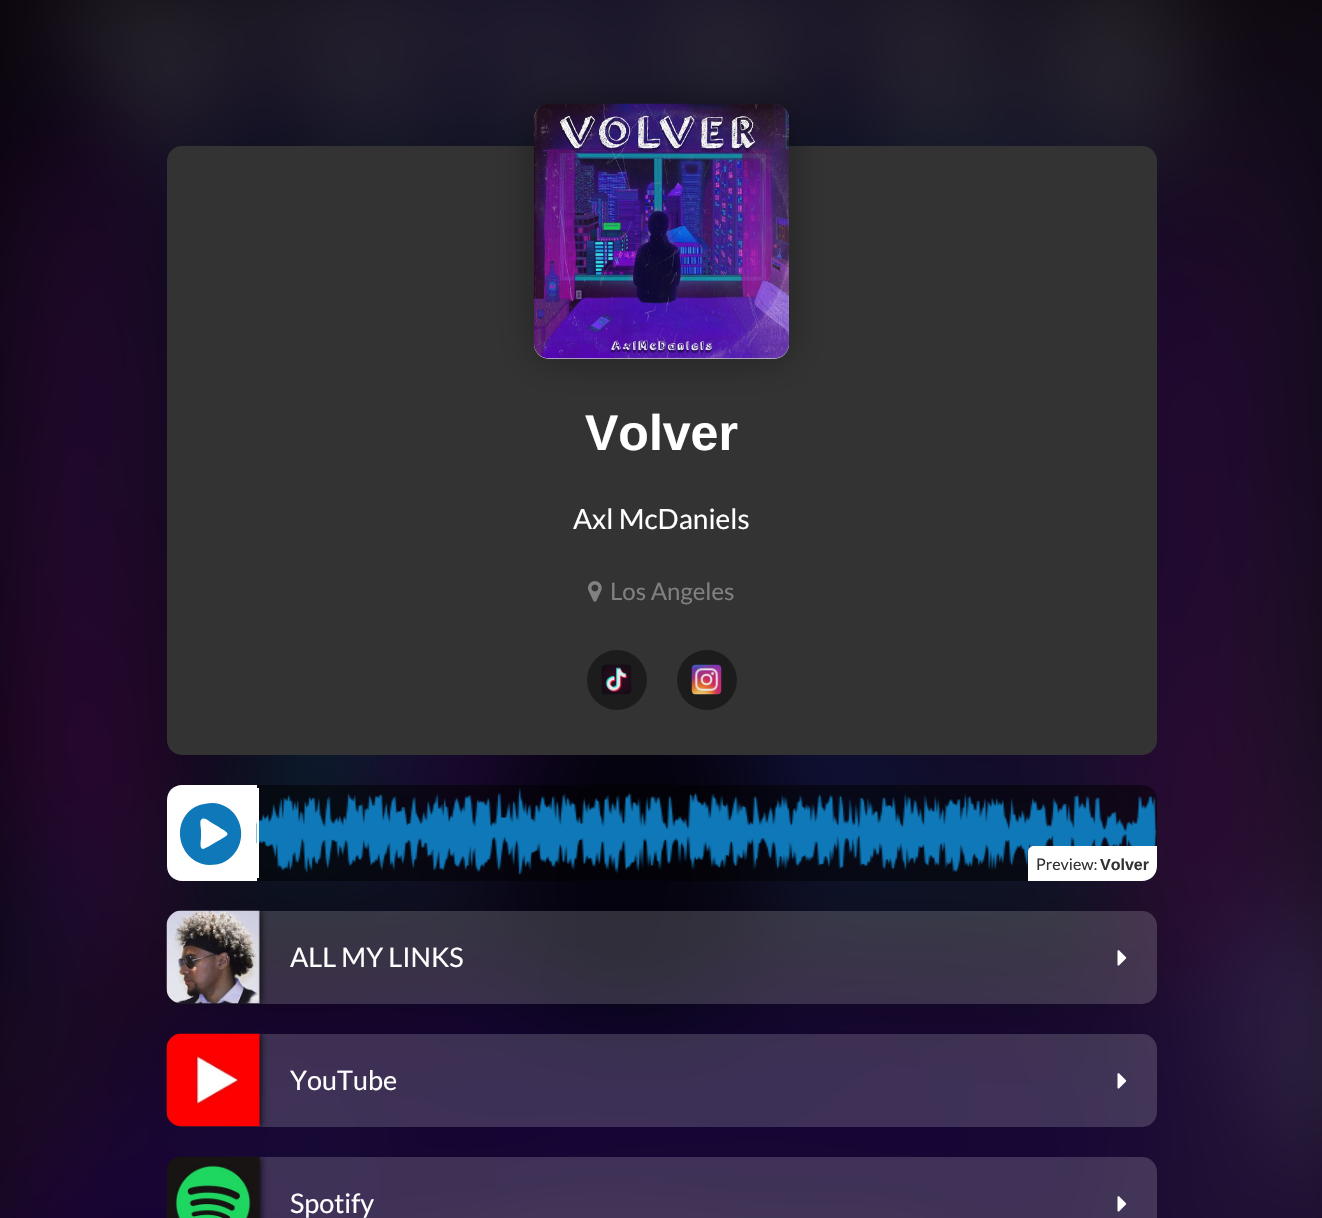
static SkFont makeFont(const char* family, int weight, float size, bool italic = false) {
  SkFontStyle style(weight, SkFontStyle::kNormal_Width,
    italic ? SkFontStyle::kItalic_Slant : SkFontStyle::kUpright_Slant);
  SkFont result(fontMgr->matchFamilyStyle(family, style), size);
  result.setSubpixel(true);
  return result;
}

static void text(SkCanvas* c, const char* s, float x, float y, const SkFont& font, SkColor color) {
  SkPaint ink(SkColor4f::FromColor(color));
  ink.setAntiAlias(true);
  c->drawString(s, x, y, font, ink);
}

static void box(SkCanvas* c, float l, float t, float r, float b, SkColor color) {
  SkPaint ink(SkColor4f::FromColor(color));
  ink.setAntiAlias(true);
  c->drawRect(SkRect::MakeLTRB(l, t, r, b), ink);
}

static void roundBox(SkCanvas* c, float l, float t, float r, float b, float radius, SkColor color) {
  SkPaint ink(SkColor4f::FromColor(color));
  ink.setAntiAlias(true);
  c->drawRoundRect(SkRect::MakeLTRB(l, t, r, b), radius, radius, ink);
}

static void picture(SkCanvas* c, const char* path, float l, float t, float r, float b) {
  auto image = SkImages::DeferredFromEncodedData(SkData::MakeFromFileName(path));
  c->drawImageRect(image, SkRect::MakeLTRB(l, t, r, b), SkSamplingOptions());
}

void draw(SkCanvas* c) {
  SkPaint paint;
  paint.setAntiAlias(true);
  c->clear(0xff000000);
  picture(c, "img_01.png", 0, 0, 1322, 1218);
  roundBox(c, 167, 146, 1157, 755, 15, 0xff333333);
  paint.setColor(0x59000000);
  paint.setMaskFilter(SkMaskFilter::MakeBlur(kNormal_SkBlurStyle, 19));
  c->drawRoundRect(SkRect::MakeLTRB(534, 104, 789, 359), 15, 15, paint);
  paint.setMaskFilter(nullptr);
  roundBox(c, 534, 104, 789, 359, 15, 0xffcccccc);
  picture(c, "img_02.png", 534, 103, 789, 359);
  SkFont face1 = makeFont("Liberation Sans", 700, 50);
  text(c, "Volver", 585, 450, face1, 0xffffffff);
  SkFont face2 = makeFont("Lato", 400, 28);
  text(c, "Axl McDaniels", 573, 529, face2, 0xffffffff);
  picture(c, "img_03.png", 588, 581, 602, 602);
  SkFont face3 = makeFont("Lato", 400, 24);
  text(c, "Los Angeles", 610, 600, face3, 0xff808080);
  paint.setColor(0xff1c1c1c);
  c->drawCircle(617, 680, 30, paint);
  picture(c, "img_04.png", 601, 664, 632, 695);
  c->drawCircle(707, 680, 30, paint);
  picture(c, "img_05.png", 691, 664, 722, 695);
  paint.setColor(0xffffffff);
  c->drawPath(SkPathBuilder().moveTo(182, 785).lineTo(257, 785).lineTo(257, 881).lineTo(182, 881).cubicTo(173.5f, 881, 167, 874.5f, 167, 866).lineTo(167, 800).cubicTo(167, 791.5f, 173.5f, 785, 182, 785).close().detach(), paint);
  paint.setColor(0xff0f78b8);
  c->drawPath(SkPathBuilder().moveTo(195, 807).cubicTo(201, 804, 207, 803, 213, 803).cubicTo(243, 805, 252, 845, 226, 861).cubicTo(221, 864, 215, 865, 209, 865).cubicTo(179, 863, 169, 822, 195, 807).close().moveTo(226, 836).cubicTo(232, 833, 219, 828, 219, 827).lineTo(212, 823).cubicTo(210, 822, 205, 817, 202, 819).cubicTo(199, 820, 201, 827, 201, 830).lineTo(201, 838).cubicTo(201, 840, 199, 849, 203, 849).cubicTo(205, 849, 223, 838, 226, 836).close().detach(), paint);
  paint.setColor(0x80000000);
  c->drawPath(SkPathBuilder().moveTo(257, 785).lineTo(1142, 785).cubicTo(1150.5f, 785, 1157, 791.5f, 1157, 800).lineTo(1157, 866).cubicTo(1157, 874.5f, 1150.5f, 881, 1142, 881).lineTo(257, 881).close().detach(), paint);
  picture(c, "img_06.png", 256, 787, 1157, 875);
  box(c, 257, 788, 259, 878, 0xffffffff);
  paint.setColor(0xffffffff);
  c->drawPath(SkPathBuilder().moveTo(1034, 846).lineTo(1157, 846).lineTo(1157, 866).cubicTo(1157, 874.5f, 1150.5f, 881, 1142, 881).lineTo(1028, 881).lineTo(1028, 852).cubicTo(1028, 848.5f, 1030.5f, 846, 1034, 846).close().detach(), paint);
  SkFont face4 = makeFont("Lato", 400, 16);
  text(c, "Preview:", 1036, 870, face4, 0xff333333);
  SkFont face5 = makeFont("Liberation Sans", 700, 16);
  text(c, "Volver", 1100, 870, face5, 0xff333333);
  roundBox(c, 167, 911, 1157, 1004, 15, 0x2bffffff);
  c->save();
  c->clipPath(SkPathBuilder().moveTo(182, 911).lineTo(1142, 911).cubicTo(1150.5f, 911, 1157, 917.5f, 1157, 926).lineTo(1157, 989).cubicTo(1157, 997.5f, 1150.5f, 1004, 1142, 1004).lineTo(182, 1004).cubicTo(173.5f, 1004, 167, 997.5f, 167, 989).lineTo(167, 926).cubicTo(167, 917.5f, 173.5f, 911, 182, 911).close().detach(), true);
  paint.setColor(0xff000000);
  paint.setMaskFilter(SkMaskFilter::MakeBlur(kNormal_SkBlurStyle, 4));
  c->drawRect(SkRect::MakeLTRB(167, 911, 260, 1004), paint);
  paint.setMaskFilter(nullptr);
  c->restore();
  picture(c, "img_07.png", 166, 910, 260, 1004);
  SkFont face6 = makeFont("Lato", 400, 27);
  text(c, "ALL MY LINKS", 290, 967, face6, 0xffffffff);
  picture(c, "img_08.png", 1117, 950, 1127, 966);
  roundBox(c, 167, 1034, 1157, 1127, 15, 0x2bffffff);
  c->save();
  c->clipPath(SkPathBuilder().moveTo(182, 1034).lineTo(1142, 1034).cubicTo(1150.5f, 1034, 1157, 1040.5f, 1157, 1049).lineTo(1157, 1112).cubicTo(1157, 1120.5f, 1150.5f, 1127, 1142, 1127).lineTo(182, 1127).cubicTo(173.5f, 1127, 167, 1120.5f, 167, 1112).lineTo(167, 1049).cubicTo(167, 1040.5f, 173.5f, 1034, 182, 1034).close().detach(), true);
  paint.setMaskFilter(SkMaskFilter::MakeBlur(kNormal_SkBlurStyle, 4));
  c->drawRect(SkRect::MakeLTRB(167, 1034, 260, 1127), paint);
  paint.setMaskFilter(nullptr);
  c->restore();
  picture(c, "img_09.png", 166, 1033, 260, 1127);
  text(c, "YouTube", 290, 1090, face6, 0xffffffff);
  picture(c, "img_10.png", 1117, 1073, 1127, 1089);
  roundBox(c, 167, 1157, 1157, 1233, 15, 0x2bffffff);
  c->save();
  c->clipPath(SkPathBuilder().moveTo(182, 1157).lineTo(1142, 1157).cubicTo(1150.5f, 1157, 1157, 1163.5f, 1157, 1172).lineTo(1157, 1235).cubicTo(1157, 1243.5f, 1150.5f, 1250, 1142, 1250).lineTo(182, 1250).cubicTo(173.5f, 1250, 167, 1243.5f, 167, 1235).lineTo(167, 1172).cubicTo(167, 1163.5f, 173.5f, 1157, 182, 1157).close().detach(), true);
  paint.setMaskFilter(SkMaskFilter::MakeBlur(kNormal_SkBlurStyle, 4));
  c->drawRect(SkRect::MakeLTRB(167, 1157, 260, 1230), paint);
  paint.setMaskFilter(nullptr);
  c->restore();
  picture(c, "img_11.png", 166, 1156, 260, 1218);
  text(c, "Spotify", 290, 1213, face6, 0xffffffff);
  picture(c, "img_12.png", 1117, 1196, 1127, 1212);
}
